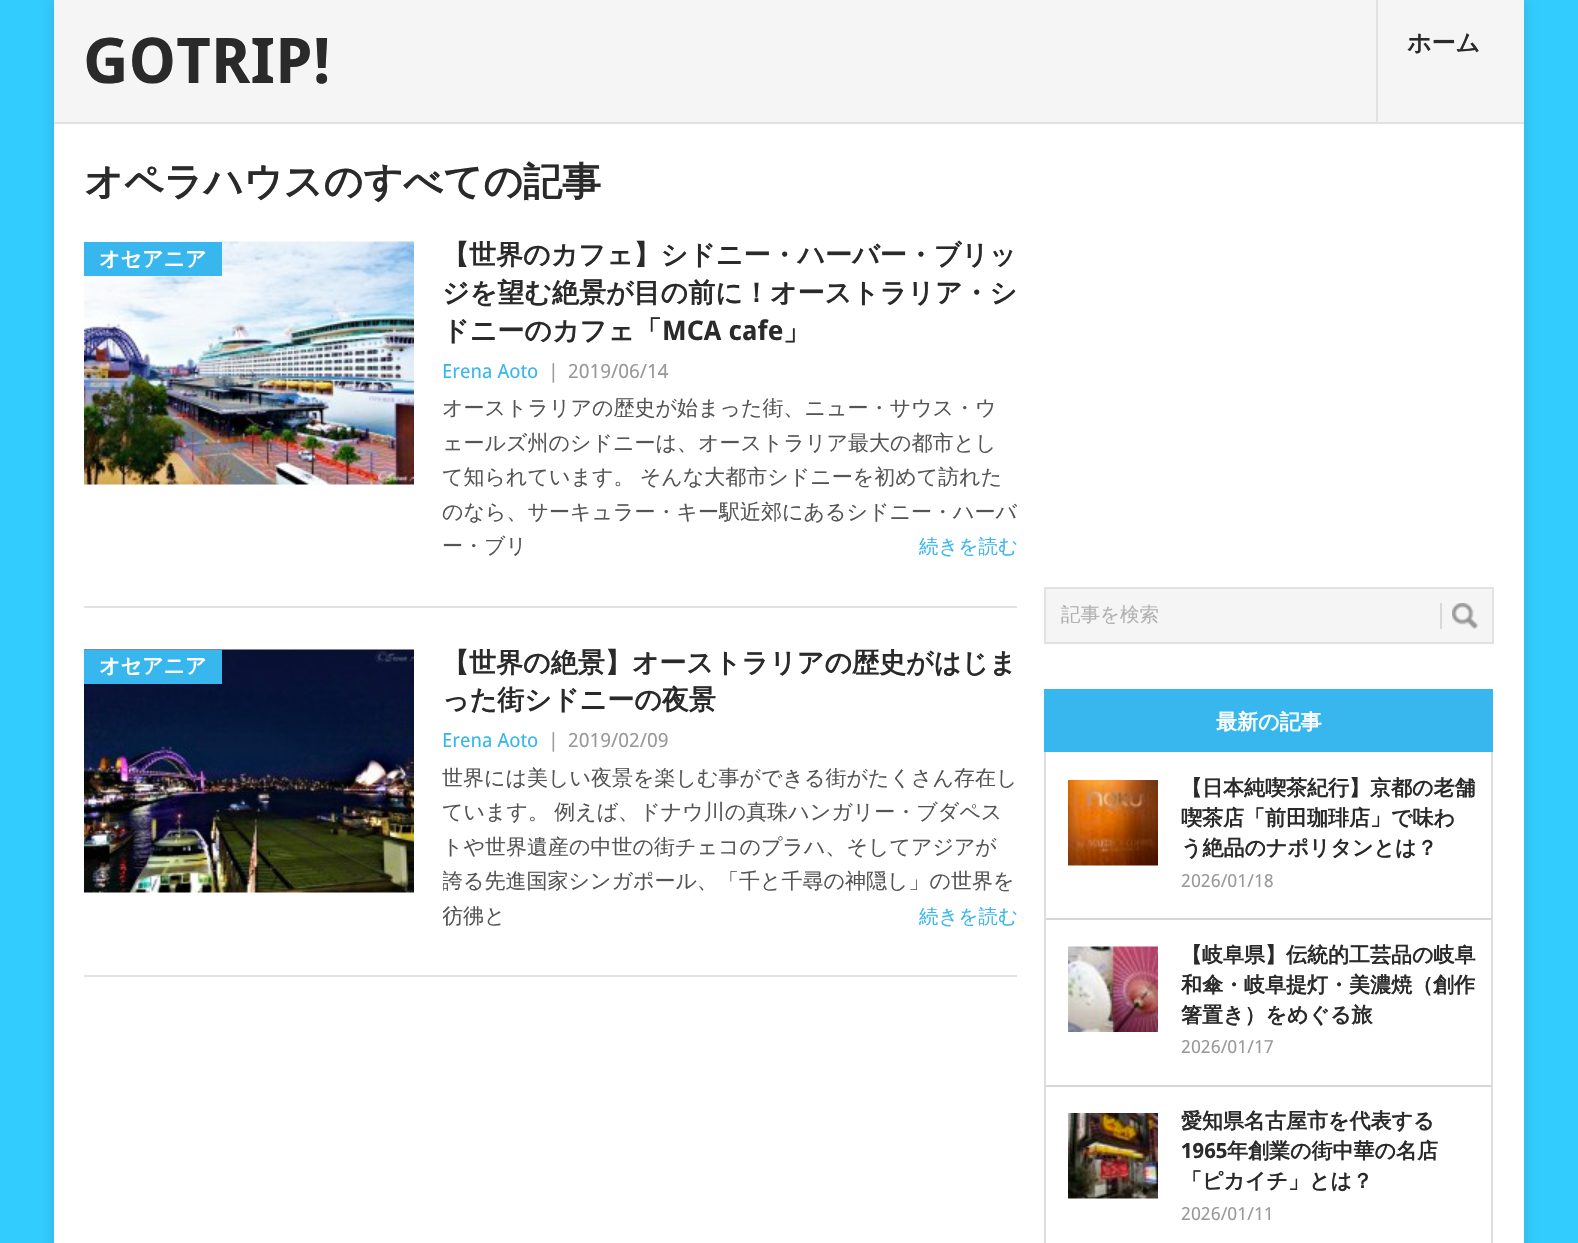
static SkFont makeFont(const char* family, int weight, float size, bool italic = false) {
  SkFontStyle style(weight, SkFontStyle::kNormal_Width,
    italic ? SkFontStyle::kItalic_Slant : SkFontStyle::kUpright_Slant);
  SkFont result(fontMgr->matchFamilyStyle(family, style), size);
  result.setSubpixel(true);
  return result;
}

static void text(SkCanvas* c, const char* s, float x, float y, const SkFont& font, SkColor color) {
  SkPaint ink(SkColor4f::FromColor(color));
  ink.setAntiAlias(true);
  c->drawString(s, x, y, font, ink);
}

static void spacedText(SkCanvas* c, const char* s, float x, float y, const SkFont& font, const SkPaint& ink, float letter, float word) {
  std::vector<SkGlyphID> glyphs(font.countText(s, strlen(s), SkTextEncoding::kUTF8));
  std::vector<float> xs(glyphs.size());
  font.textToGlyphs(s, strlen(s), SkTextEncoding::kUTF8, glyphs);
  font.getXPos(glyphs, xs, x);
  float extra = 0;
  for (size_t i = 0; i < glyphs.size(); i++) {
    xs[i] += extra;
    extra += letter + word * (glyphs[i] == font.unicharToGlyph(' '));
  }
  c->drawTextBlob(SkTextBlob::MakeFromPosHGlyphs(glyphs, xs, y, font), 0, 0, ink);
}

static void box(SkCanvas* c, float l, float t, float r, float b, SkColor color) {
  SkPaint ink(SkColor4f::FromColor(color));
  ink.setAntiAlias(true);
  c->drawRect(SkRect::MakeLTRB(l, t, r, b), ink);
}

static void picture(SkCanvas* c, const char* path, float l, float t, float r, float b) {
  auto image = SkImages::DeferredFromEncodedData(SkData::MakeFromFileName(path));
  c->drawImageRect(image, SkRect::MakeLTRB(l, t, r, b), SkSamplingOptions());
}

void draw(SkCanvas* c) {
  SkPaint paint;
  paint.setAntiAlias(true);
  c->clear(0xff32ccff);
  paint.setColor(0x2b323232);
  paint.setMaskFilter(SkMaskFilter::MakeBlur(kNormal_SkBlurStyle, 7.5f));
  c->drawRect(SkRect::MakeLTRB(54, 0, 1524, 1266), paint);
  paint.setMaskFilter(nullptr);
  box(c, 54, 124, 1524, 1243, 0xffffffff);
  box(c, 54, 0, 1524, 122, 0xfff5f5f5);
  SkFont face1 = makeFont("Droid Sans", 700, 63);
  text(c, "GOTRIP!", 83, 83, face1, 0xff2a2a2a);
  box(c, 1376, 0, 1378, 123, 0xffe2e2e2);
  SkFont face2 = makeFont("WenQuanYi Zen Hei", 700, 24);
  text(c, "ホーム", 1407, 51, face2, 0xff2a2a2a);
  box(c, 54, 122, 1524, 124, 0xffe2e2e2);
  SkFont face3 = makeFont("WenQuanYi Zen Hei", 700, 39);
  text(c, "オペラハウスのすべての記事", 84, 195, face3, 0xff2a2a2a);
  box(c, 84, 606, 1017, 608, 0xffe2e2e2);
  picture(c, "img_01.png", 84, 241, 414, 485);
  box(c, 84, 242, 222, 276, 0xff38b7ee);
  SkFont face4 = makeFont("WenQuanYi Zen Hei", 700, 21);
  text(c, "オセアニア", 99, 266, face4, 0xffffffff);
  SkFont face5 = makeFont("WenQuanYi Zen Hei", 700, 27);
  text(c, "【世界のカフェ】シドニー・ハーバー・ブリッ", 442, 264, face5, 0xff2a2a2a);
  text(c, "ジを望む絶景が目の前に！オーストラリア・シ", 442, 302, face5, 0xff2a2a2a);
  text(c, "ドニーのカフェ「", 442, 340, face5, 0xff2a2a2a);
  SkFont face6 = makeFont("Droid Sans", 700, 27);
  text(c, "MCA cafe", 662, 340, face6, 0xff2a2a2a);
  text(c, "」", 783, 340, face5, 0xff2a2a2a);
  SkFont face7 = makeFont("Droid Sans", 400, 19.5f);
  text(c, "Erena Aoto", 442, 378, face7, 0xff38b7ee);
  text(c, "|", 548, 378, face7, 0xff999999);
  text(c, "2019/06/14", 568, 378, face7, 0xff999999);
  SkFont face8 = makeFont("WenQuanYi Zen Hei", 500, 21);
  text(c, "オーストラリアの歴史が始まった街、ニュー・サウス・ウ", 442, 415, face8, 0xff555555);
  text(c, "ェールズ州のシドニーは、オーストラリア最大の都市とし", 442, 450, face8, 0xff555555);
  paint.setColor(0xff555555);
  spacedText(c, "て知られています。 そんな大都市シドニーを初めて訪れた", 442, 484, face8, paint, 0, -1);
  text(c, "のなら、サーキュラー・キー駅近郊にあるシドニー・ハーバ", 442, 519, face8, 0xff555555);
  text(c, "ー・ブリ", 442, 553, face8, 0xff555555);
  SkFont face9 = makeFont("WenQuanYi Zen Hei", 500, 19.5f);
  text(c, "続きを読む", 919, 553, face9, 0xff38b7ee);
  box(c, 84, 975, 1017, 977, 0xffe2e2e2);
  picture(c, "img_02.png", 84, 649, 414, 893);
  box(c, 84, 650, 222, 684, 0xff38b7ee);
  text(c, "オセアニア", 99, 673, face4, 0xffffffff);
  text(c, "【世界の絶景】オーストラリアの歴史がはじま", 442, 672, face5, 0xff2a2a2a);
  text(c, "った街シドニーの夜景", 442, 709, face5, 0xff2a2a2a);
  text(c, "Erena Aoto", 442, 747, face7, 0xff38b7ee);
  text(c, "|", 548, 747, face7, 0xff999999);
  text(c, "2019/02/09", 568, 747, face7, 0xff999999);
  text(c, "世界には美しい夜景を楽しむ事ができる街がたくさん存在し", 442, 785, face8, 0xff555555);
  spacedText(c, "ています。 例えば、ドナウ川の真珠ハンガリー・ブダペス", 442, 819, face8, paint, 0, -1);
  text(c, "トや世界遺産の中世の街チェコのプラハ、そしてアジアが", 442, 854, face8, 0xff555555);
  c->save();
  c->clipRect(SkRect::MakeLTRB(443, 761, 1017, 933));
  text(c, "誇る先進国家シンガポール、「千と千尋の神隠し」の世界を", 442, 888, face8, 0xff555555);
  text(c, "彷彿と", 442, 923, face8, 0xff555555);
  c->restore();
  text(c, "続きを読む", 919, 923, face9, 0xff38b7ee);
  paint.setColor(0xfff5f5f5);
  c->drawRect(SkRect::MakeLTRB(1045, 588, 1493, 643), paint);
  paint.setStyle(SkPaint::kStroke_Style);
  paint.setStrokeWidth(2);
  paint.setColor(0xffe2e2e2);
  c->drawRect(SkRect::MakeLTRB(1045, 588, 1493, 643), paint);
  text(c, "記事を検索", 1061, 621, face9, 0xffb1b1b1);
  picture(c, "img_03.png", 1452, 603, 1478, 629);
  box(c, 1440, 603, 1442, 629, 0xffd8d8d8);
  box(c, 1044, 689, 1493, 752, 0xff38b7ee);
  text(c, "最新の記事", 1216, 729, face4, 0xffffffff);
  box(c, 1491, 752, 1493, 1243, 0xffdddddd);
  box(c, 1044, 752, 1046, 1243, 0xffdddddd);
  box(c, 1046, 918, 1491, 920, 0xffd7d7d7);
  picture(c, "img_04.png", 1068, 780, 1158, 866);
  text(c, "【日本純喫茶紀行】京都の老舗", 1181, 795, face4, 0xff2a2a2a);
  text(c, "喫茶店「前田珈琲店」で味わ", 1181, 825, face4, 0xff2a2a2a);
  text(c, "う絶品のナポリタンとは？", 1181, 855, face4, 0xff2a2a2a);
  SkFont face10 = makeFont("Droid Sans", 400, 18);
  text(c, "2026/01/18", 1181, 887, face10, 0xff999999);
  box(c, 1046, 1085, 1491, 1087, 0xffd7d7d7);
  picture(c, "img_05.png", 1068, 946, 1158, 1032);
  text(c, "【岐阜県】伝統的工芸品の岐阜", 1181, 962, face4, 0xff2a2a2a);
  text(c, "和傘・岐阜提灯・美濃焼（創作", 1181, 992, face4, 0xff2a2a2a);
  text(c, "箸置き）をめぐる旅", 1181, 1022, face4, 0xff2a2a2a);
  text(c, "2026/01/17", 1181, 1053, face10, 0xff999999);
  picture(c, "img_06.png", 1068, 1113, 1158, 1199);
  text(c, "愛知県名古屋市を代表する", 1181, 1128, face4, 0xff2a2a2a);
  SkFont face11 = makeFont("Droid Sans", 700, 21);
  text(c, "1965", 1181, 1158, face11, 0xff2a2a2a);
  text(c, "年創業の街中華の名店", 1227, 1158, face4, 0xff2a2a2a);
  text(c, "「ピカイチ」とは？", 1181, 1188, face4, 0xff2a2a2a);
  text(c, "2026/01/11", 1181, 1220, face10, 0xff999999);
}
